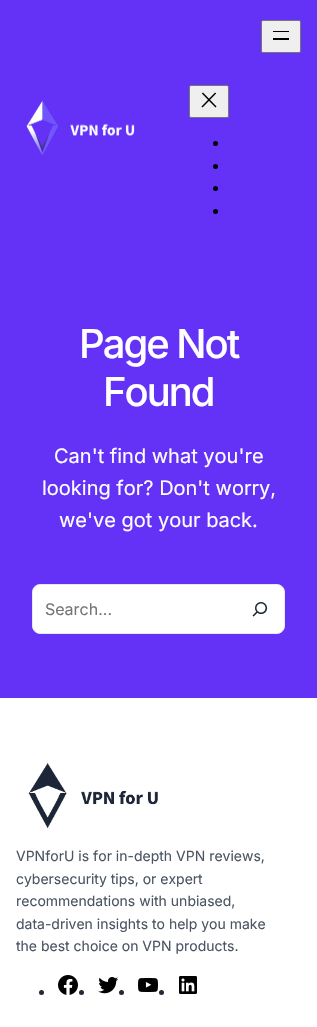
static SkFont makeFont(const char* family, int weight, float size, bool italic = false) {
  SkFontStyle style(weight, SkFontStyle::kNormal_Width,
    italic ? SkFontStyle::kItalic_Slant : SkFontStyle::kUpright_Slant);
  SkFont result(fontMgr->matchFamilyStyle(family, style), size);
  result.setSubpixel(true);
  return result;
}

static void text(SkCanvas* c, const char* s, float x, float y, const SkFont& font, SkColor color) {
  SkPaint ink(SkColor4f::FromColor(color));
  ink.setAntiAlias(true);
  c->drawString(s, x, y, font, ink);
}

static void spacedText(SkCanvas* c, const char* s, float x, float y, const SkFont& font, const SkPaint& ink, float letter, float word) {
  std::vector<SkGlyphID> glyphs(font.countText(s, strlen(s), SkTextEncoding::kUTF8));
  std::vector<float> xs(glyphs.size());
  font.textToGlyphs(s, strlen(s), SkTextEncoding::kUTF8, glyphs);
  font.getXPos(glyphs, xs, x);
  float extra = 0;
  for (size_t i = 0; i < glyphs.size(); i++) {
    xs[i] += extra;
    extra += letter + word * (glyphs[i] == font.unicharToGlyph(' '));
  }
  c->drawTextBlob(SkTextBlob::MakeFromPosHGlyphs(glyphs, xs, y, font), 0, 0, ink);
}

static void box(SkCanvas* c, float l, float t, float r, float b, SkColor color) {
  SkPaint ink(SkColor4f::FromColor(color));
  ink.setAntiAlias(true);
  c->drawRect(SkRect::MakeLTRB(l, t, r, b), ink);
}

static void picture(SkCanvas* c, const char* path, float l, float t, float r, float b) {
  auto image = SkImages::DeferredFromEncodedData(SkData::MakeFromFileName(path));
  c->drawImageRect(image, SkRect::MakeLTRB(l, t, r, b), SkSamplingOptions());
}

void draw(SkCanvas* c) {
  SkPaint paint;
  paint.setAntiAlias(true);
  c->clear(0xffffffff);
  box(c, 0, 0, 317, 698, 0xff6431f7);
  picture(c, "img_01.png", 26, 101, 135, 155);
  paint.setColor(0xffefefef);
  c->drawRoundRect(SkRect::MakeLTRB(261.5f, 20.5f, 300.5f, 52.5f), 1.5f, 1.5f, paint);
  paint.setStyle(SkPaint::kStroke_Style);
  paint.setStrokeWidth(1);
  paint.setColor(0xff767676);
  c->drawRoundRect(SkRect::MakeLTRB(261.5f, 20.5f, 300.5f, 52.5f), 1.5f, 1.5f, paint);
  box(c, 273, 31, 289, 32, 0xff000000);
  box(c, 273, 38, 289, 40, 0xff000000);
  paint.setStyle(SkPaint::kFill_Style);
  paint.setColor(0xffefefef);
  c->drawRoundRect(SkRect::MakeLTRB(189.5f, 85.5f, 228.5f, 117.5f), 1.5f, 1.5f, paint);
  paint.setStyle(SkPaint::kStroke_Style);
  paint.setColor(0xff767676);
  c->drawRoundRect(SkRect::MakeLTRB(189.5f, 85.5f, 228.5f, 117.5f), 1.5f, 1.5f, paint);
  picture(c, "img_02.png", 201, 92, 217, 108);
  paint.setStyle(SkPaint::kFill_Style);
  paint.setColor(0xff000000);
  c->drawCircle(215.5f, 143.5f, 2.5f, paint);
  c->drawCircle(215.5f, 166.5f, 2.5f, paint);
  c->drawCircle(215.5f, 188.5f, 2.5f, paint);
  c->drawCircle(215.5f, 211.5f, 2.5f, paint);
  SkFont face1 = makeFont("Inter", 500, 40);
  paint.setColor(0xffffffff);
  spacedText(c, "Page Not", 79, 358, face1, paint, -2, 0);
  spacedText(c, "Found", 103, 406, face1, paint, -2, 0);
  SkFont face2 = makeFont("Inter", 400, 20);
  text(c, "Can't find what you're", 54, 463, face2, 0xffffffff);
  text(c, "looking for? Don't worry,", 42, 495, face2, 0xffffffff);
  text(c, "we've got your back.", 59, 527, face2, 0xffffffff);
  c->drawRoundRect(SkRect::MakeLTRB(32.5f, 584.5f, 284.5f, 633.5f), 7.5f, 7.5f, paint);
  paint.setStyle(SkPaint::kStroke_Style);
  paint.setColor(0xffe6e9ef);
  c->drawRoundRect(SkRect::MakeLTRB(32.5f, 584.5f, 284.5f, 633.5f), 7.5f, 7.5f, paint);
  SkFont face3 = makeFont("Inter", 400, 16);
  text(c, "Search...", 45, 615, face3, 0xff757575);
  picture(c, "img_03.png", 252, 602, 268, 617);
  picture(c, "img_04.png", 28, 763, 158, 828);
  SkFont face4 = makeFont("Inter", 400, 14);
  text(c, "VPNforU is for in-depth VPN reviews,", 16, 861, face4, 0xff4b5563);
  text(c, "cybersecurity tips, or expert", 16, 884, face4, 0xff4b5563);
  text(c, "recommendations with unbiased,", 16, 906, face4, 0xff4b5563);
  text(c, "data-driven insights to help you make", 16, 929, face4, 0xff4b5563);
  text(c, "the best choice on VPN products.", 16, 951, face4, 0xff4b5563);
  paint.setStyle(SkPaint::kFill_Style);
  paint.setColor(0xff1f2937);
  c->drawCircle(41.5f, 992.5f, 2.5f, paint);
  picture(c, "img_05.png", 58, 975, 78, 995);
  c->drawCircle(81.5f, 992.5f, 2.5f, paint);
  picture(c, "img_06.png", 98, 977, 118, 994);
  picture(c, "img_07.png", 138, 978, 158, 992);
  c->drawCircle(121.5f, 992.5f, 2.5f, paint);
  c->drawCircle(161.5f, 992.5f, 2.5f, paint);
  picture(c, "img_08.png", 179, 976, 197, 994);
}
